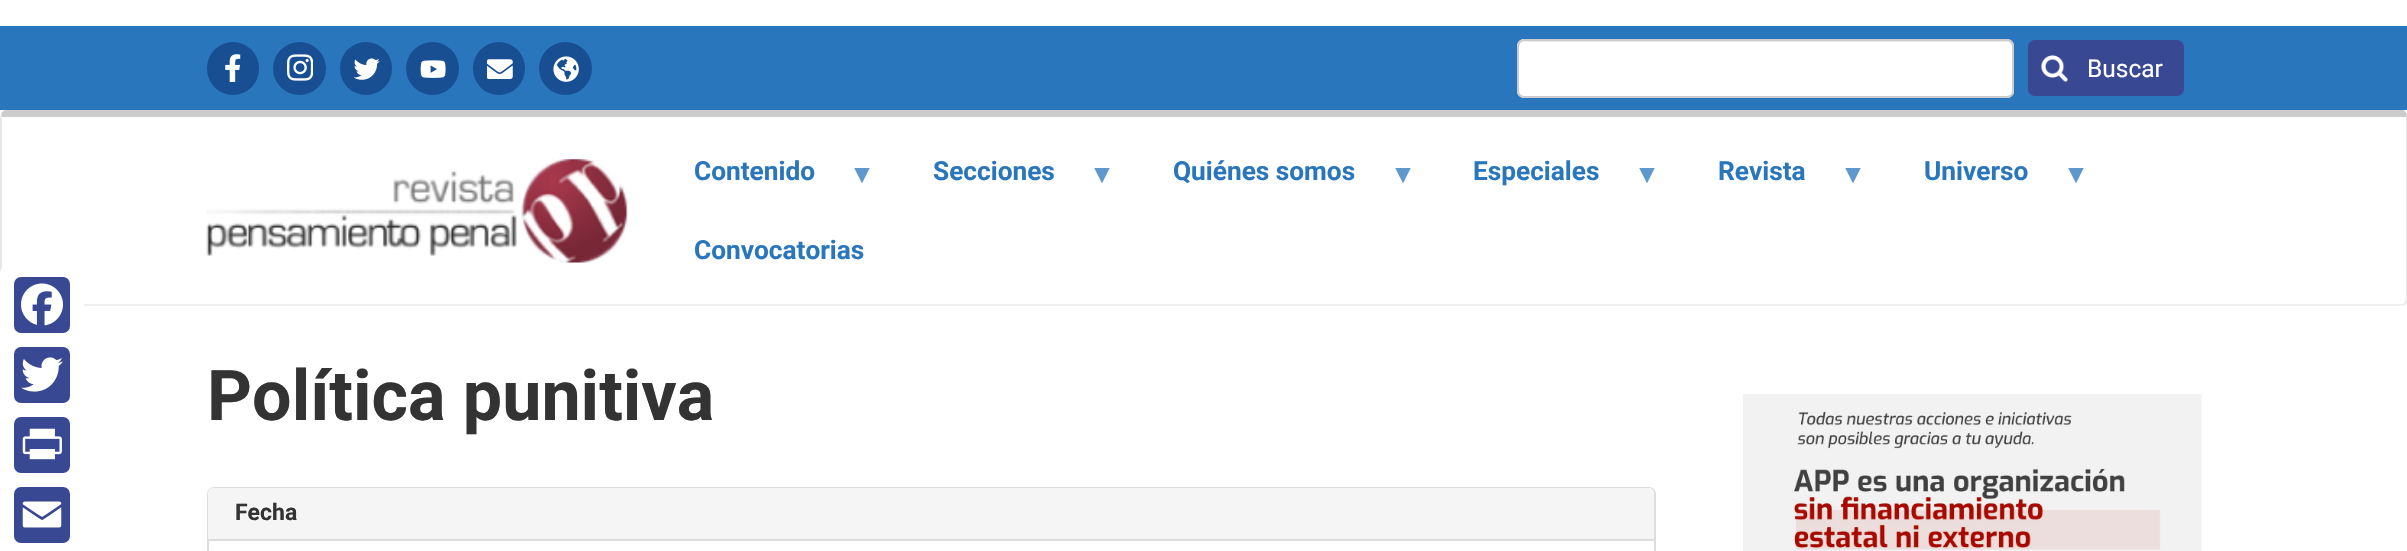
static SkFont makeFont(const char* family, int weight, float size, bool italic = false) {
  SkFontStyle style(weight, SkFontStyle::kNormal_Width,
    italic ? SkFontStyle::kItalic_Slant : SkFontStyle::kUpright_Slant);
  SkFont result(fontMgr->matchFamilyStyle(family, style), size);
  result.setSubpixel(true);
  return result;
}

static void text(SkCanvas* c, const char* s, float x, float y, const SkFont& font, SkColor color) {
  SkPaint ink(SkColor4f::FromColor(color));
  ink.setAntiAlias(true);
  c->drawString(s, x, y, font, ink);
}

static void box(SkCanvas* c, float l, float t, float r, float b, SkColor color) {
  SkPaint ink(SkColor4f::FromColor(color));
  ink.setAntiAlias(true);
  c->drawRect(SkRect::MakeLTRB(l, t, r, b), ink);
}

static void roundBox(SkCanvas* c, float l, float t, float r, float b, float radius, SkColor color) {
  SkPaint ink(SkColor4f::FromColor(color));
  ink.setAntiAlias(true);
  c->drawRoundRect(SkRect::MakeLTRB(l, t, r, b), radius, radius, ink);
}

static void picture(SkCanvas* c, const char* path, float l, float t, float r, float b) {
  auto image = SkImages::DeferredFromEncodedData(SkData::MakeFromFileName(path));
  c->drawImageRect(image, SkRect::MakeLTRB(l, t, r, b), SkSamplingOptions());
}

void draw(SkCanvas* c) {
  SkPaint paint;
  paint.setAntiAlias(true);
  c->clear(0xffffffff);
  box(c, 0, 26, 2407, 110, 0xff2976bc);
  roundBox(c, 207, 42, 259, 95, 26, 0xff184f92);
  picture(c, "img_01.png", 225, 54, 241, 82);
  paint.setColor(0xff184f92);
  c->drawCircle(299.5f, 68.5f, 26.5f, paint);
  picture(c, "img_02.png", 287, 54, 313, 81);
  roundBox(c, 340, 42, 392, 95, 26, 0xff184f92);
  picture(c, "img_03.png", 354, 58, 380, 80);
  c->drawCircle(432.5f, 68.5f, 26.5f, paint);
  picture(c, "img_04.png", 420, 60, 446, 78);
  roundBox(c, 473, 42, 525, 95, 26, 0xff184f92);
  picture(c, "img_05.png", 487, 59, 513, 79);
  c->drawCircle(565.5f, 68.5f, 26.5f, paint);
  picture(c, "img_06.png", 553, 56, 579, 82);
  roundBox(c, 1517, 39, 2014, 98, 7, 0xffffffff);
  paint.setColor(0xffececec);
  c->drawPath(SkPathBuilder().moveTo(1524, 42).lineTo(2007, 42).cubicTo(2010, 42, 2012, 44, 2012, 47).lineTo(2012, 94).cubicTo(2013, 93, 2013, 92, 2013, 91).lineTo(2013, 45).cubicTo(2013, 42, 2011, 40, 2008, 40).lineTo(1524, 40).cubicTo(1521, 40, 1519, 42, 1519, 45).lineTo(1519, 47).cubicTo(1519, 44, 1521, 42, 1524, 42).close().detach(), paint);
  paint.setStyle(SkPaint::kStroke_Style);
  paint.setStrokeWidth(2);
  paint.setColor(0xffcccccc);
  c->drawRoundRect(SkRect::MakeLTRB(1518, 40, 2013, 97), 6, 6, paint);
  roundBox(c, 2028, 40, 2184, 96, 7, 0xff384892);
  picture(c, "img_07.png", 2041, 55, 2068, 83);
  SkFont face1 = makeFont("Roboto", 400, 24.5f);
  text(c, "Buscar", 2087, 77, face1, 0xffffffff);
  paint.setStyle(SkPaint::kFill_Style);
  c->drawPath(SkPathBuilder().moveTo(1, 114).cubicTo(2, 112, 3, 111, 5, 110).lineTo(2403, 110).cubicTo(2405, 111, 2406, 112, 2407, 114).lineTo(2406, 118).lineTo(2406, 117).lineTo(2, 117).lineTo(2, 118).close().detach(), paint);
  paint.setColor(0xffe7e7e7);
  c->drawPath(SkPathBuilder().moveTo(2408, 299).lineTo(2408, 117).lineTo(2407, 114).lineTo(2406, 118).lineTo(2406, 299).cubicTo(2406, 301, 2405, 302, 2404, 303).lineTo(2406, 304).cubicTo(2407, 303, 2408, 301, 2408, 299).close().detach(), paint);
  paint.setColor(0xffefefef);
  c->drawPath(SkPathBuilder().moveTo(2406, 304).cubicTo(2405, 305, 2403, 306, 2401, 306).lineTo(7, 306).cubicTo(5, 306, 3, 305, 2, 304).lineTo(4, 303).cubicTo(4, 304, 6, 304, 7, 304).lineTo(2401, 304).cubicTo(2402, 304, 2404, 304, 2404, 303).close().detach(), paint);
  paint.setColor(0xffe7e7e7);
  c->drawPath(SkPathBuilder().moveTo(0, 117).lineTo(0, 299).cubicTo(0, 301, 1, 303, 2, 304).lineTo(4, 303).cubicTo(3, 302, 2, 301, 2, 299).lineTo(2, 118).lineTo(1, 114).close().detach(), paint);
  picture(c, "img_08.png", 206, 159, 629, 263);
  SkFont face2 = makeFont("Roboto", 700, 26.25f);
  text(c, "Contenido", 694, 180, face2, 0xff2976bc);
  SkFont face3 = makeFont("Liberation Sans", 700, 26.25f);
  text(c, "▼", 849, 183, face3, 0xff5f98cd);
  text(c, "Secciones", 933, 180, face2, 0xff2976bc);
  text(c, "▼", 1089, 183, face3, 0xff5f98cd);
  text(c, "Quiénes somos", 1173, 180, face2, 0xff2976bc);
  text(c, "▼", 1390, 183, face3, 0xff5f98cd);
  text(c, "Especiales", 1473, 180, face2, 0xff2976bc);
  text(c, "▼", 1634, 183, face3, 0xff5f98cd);
  text(c, "Revista", 1718, 180, face2, 0xff2976bc);
  text(c, "▼", 1840, 183, face3, 0xff5f98cd);
  text(c, "Universo", 1924, 180, face2, 0xff2976bc);
  text(c, "▼", 2063, 183, face3, 0xff5f98cd);
  text(c, "Convocatorias", 694, 259, face2, 0xff2976bc);
  roundBox(c, 0, 263, 84, 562, 11, 0xffffffff);
  roundBox(c, 14, 277, 70, 333, 7, 0xff384892);
  picture(c, "img_09.png", 21, 283, 63, 326);
  roundBox(c, 14, 347, 70, 403, 7, 0xff384892);
  picture(c, "img_10.png", 21, 357, 63, 392);
  roundBox(c, 14, 417, 70, 473, 7, 0xff384892);
  picture(c, "img_11.png", 22, 428, 62, 460);
  roundBox(c, 14, 487, 70, 543, 7, 0xff384892);
  picture(c, "img_12.png", 22, 501, 62, 528);
  SkFont face4 = makeFont("Roboto", 700, 70);
  text(c, "Política punitiva", 207, 420, face4, 0xff333333);
  paint.setStyle(SkPaint::kStroke_Style);
  paint.setColor(0xffdddddd);
  c->drawRoundRect(SkRect::MakeLTRB(208, 488, 1655, 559), 6, 6, paint);
  paint.setStyle(SkPaint::kFill_Style);
  paint.setColor(0xfff5f5f5);
  c->drawPath(SkPathBuilder().moveTo(213, 488).lineTo(1649, 488).cubicTo(1652, 488, 1654, 490, 1654, 493).lineTo(1654, 541).lineTo(208, 541).lineTo(208, 493).cubicTo(208, 490, 210, 488, 213, 488).close().detach(), paint);
  box(c, 208, 539, 1654, 541, 0xffdddddd);
  SkFont face5 = makeFont("Roboto", 700, 23);
  text(c, "Fecha", 235, 520, face5, 0xff333333);
  picture(c, "img_13.png", 1743, 394, 2202, 551);
}
